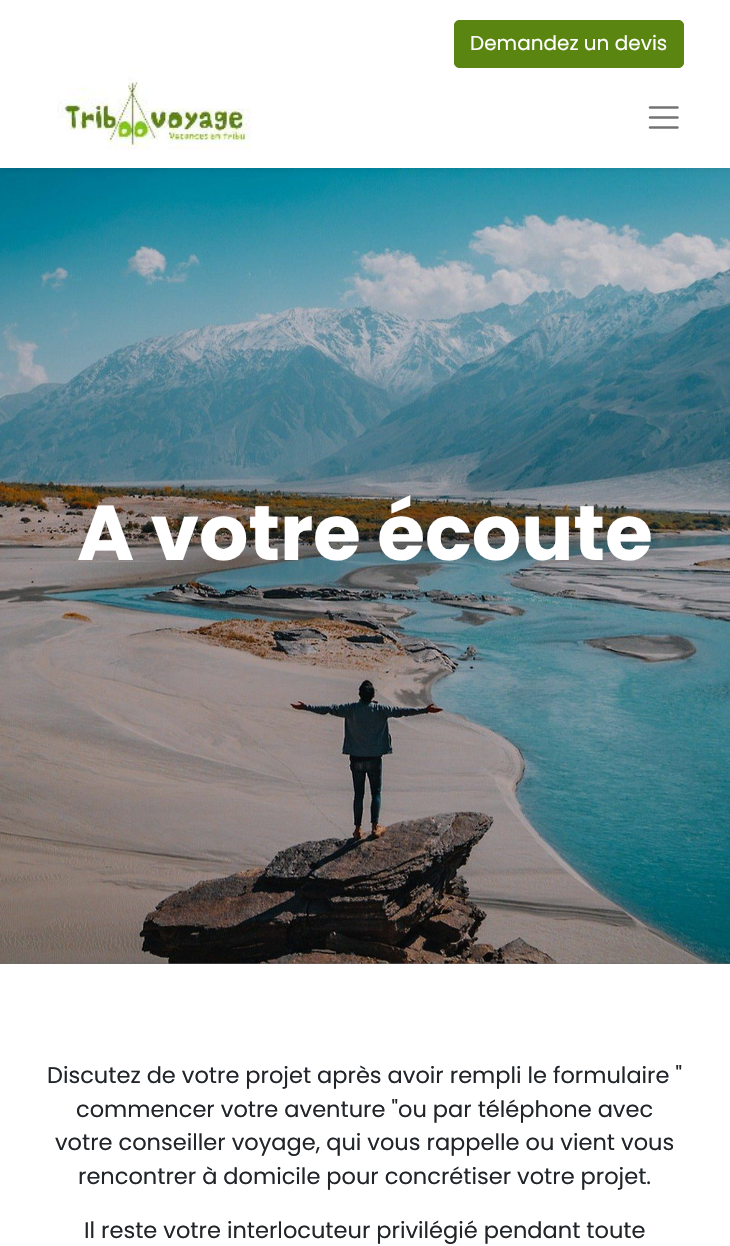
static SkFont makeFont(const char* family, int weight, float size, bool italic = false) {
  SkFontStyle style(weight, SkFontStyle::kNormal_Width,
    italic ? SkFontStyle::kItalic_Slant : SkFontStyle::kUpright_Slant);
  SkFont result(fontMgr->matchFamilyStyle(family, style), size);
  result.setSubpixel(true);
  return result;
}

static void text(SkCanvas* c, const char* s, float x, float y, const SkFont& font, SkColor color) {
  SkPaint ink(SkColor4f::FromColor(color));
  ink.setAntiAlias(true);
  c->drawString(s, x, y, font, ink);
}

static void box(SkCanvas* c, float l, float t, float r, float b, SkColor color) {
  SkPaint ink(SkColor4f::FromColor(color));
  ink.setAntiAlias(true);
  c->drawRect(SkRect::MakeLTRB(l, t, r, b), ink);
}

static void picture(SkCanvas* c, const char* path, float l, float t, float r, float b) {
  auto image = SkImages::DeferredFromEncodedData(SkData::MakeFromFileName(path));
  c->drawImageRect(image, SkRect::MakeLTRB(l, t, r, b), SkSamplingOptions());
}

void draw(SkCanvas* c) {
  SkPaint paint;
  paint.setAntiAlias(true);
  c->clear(0xffffffff);
  box(c, 0, 963, 730, 964, 0xff6d6d6d);
  picture(c, "img_02.png", 0, 168, 730, 964);
  paint.setColor(0x12000000);
  paint.setMaskFilter(SkMaskFilter::MakeBlur(kNormal_SkBlurStyle, 2.5f));
  c->drawRect(SkRect::MakeLTRB(0, 3, 730, 170), paint);
  paint.setMaskFilter(nullptr);
  box(c, 0, 0, 730, 168, 0xffffffff);
  paint.setColor(0xff5b8511);
  c->drawRoundRect(SkRect::MakeLTRB(454.5f, 20.5f, 683.5f, 67.5f), 4.5f, 4.5f, paint);
  paint.setStyle(SkPaint::kStroke_Style);
  paint.setStrokeWidth(1);
  c->drawRoundRect(SkRect::MakeLTRB(454.5f, 20.5f, 683.5f, 67.5f), 4.5f, 4.5f, paint);
  SkFont face1 = makeFont("Poppins", 400, 20);
  text(c, "Demandez un devis", 470, 50, face1, 0xffffffff);
  picture(c, "img_01.png", 57, 68, 252, 150);
  paint.setStrokeWidth(2.5f);
  paint.setStrokeCap(SkPaint::kRound_Cap);
  paint.setColor(0xff737373);
  c->drawPath(SkPathBuilder().moveTo(650, 107.5f).lineTo(677.5f, 107.5f).moveTo(650, 117.5f).lineTo(677.5f, 117.5f).moveTo(650, 127.5f).lineTo(677.5f, 127.5f).detach(), paint);
  SkFont face2 = makeFont("Poppins", 700, 77.5f);
  text(c, "A votre écoute", 77, 560, face2, 0xffffffff);
  SkFont face3 = makeFont("Poppins", 400, 22.5f);
  text(c, "Discutez de votre projet après avoir rempli le formulaire \"", 47, 1083, face3, 0xff212529);
  text(c, "commencer votre aventure \"ou par téléphone avec", 76, 1117, face3, 0xff212529);
  text(c, "votre conseiller voyage, qui vous rappelle ou vient vous", 55, 1150, face3, 0xff212529);
  text(c, "rencontrer à domicile pour concrétiser votre projet.", 78, 1184, face3, 0xff212529);
  text(c, "Il reste votre interlocuteur privilégié pendant toute", 84, 1238, face3, 0xff212529);
}
